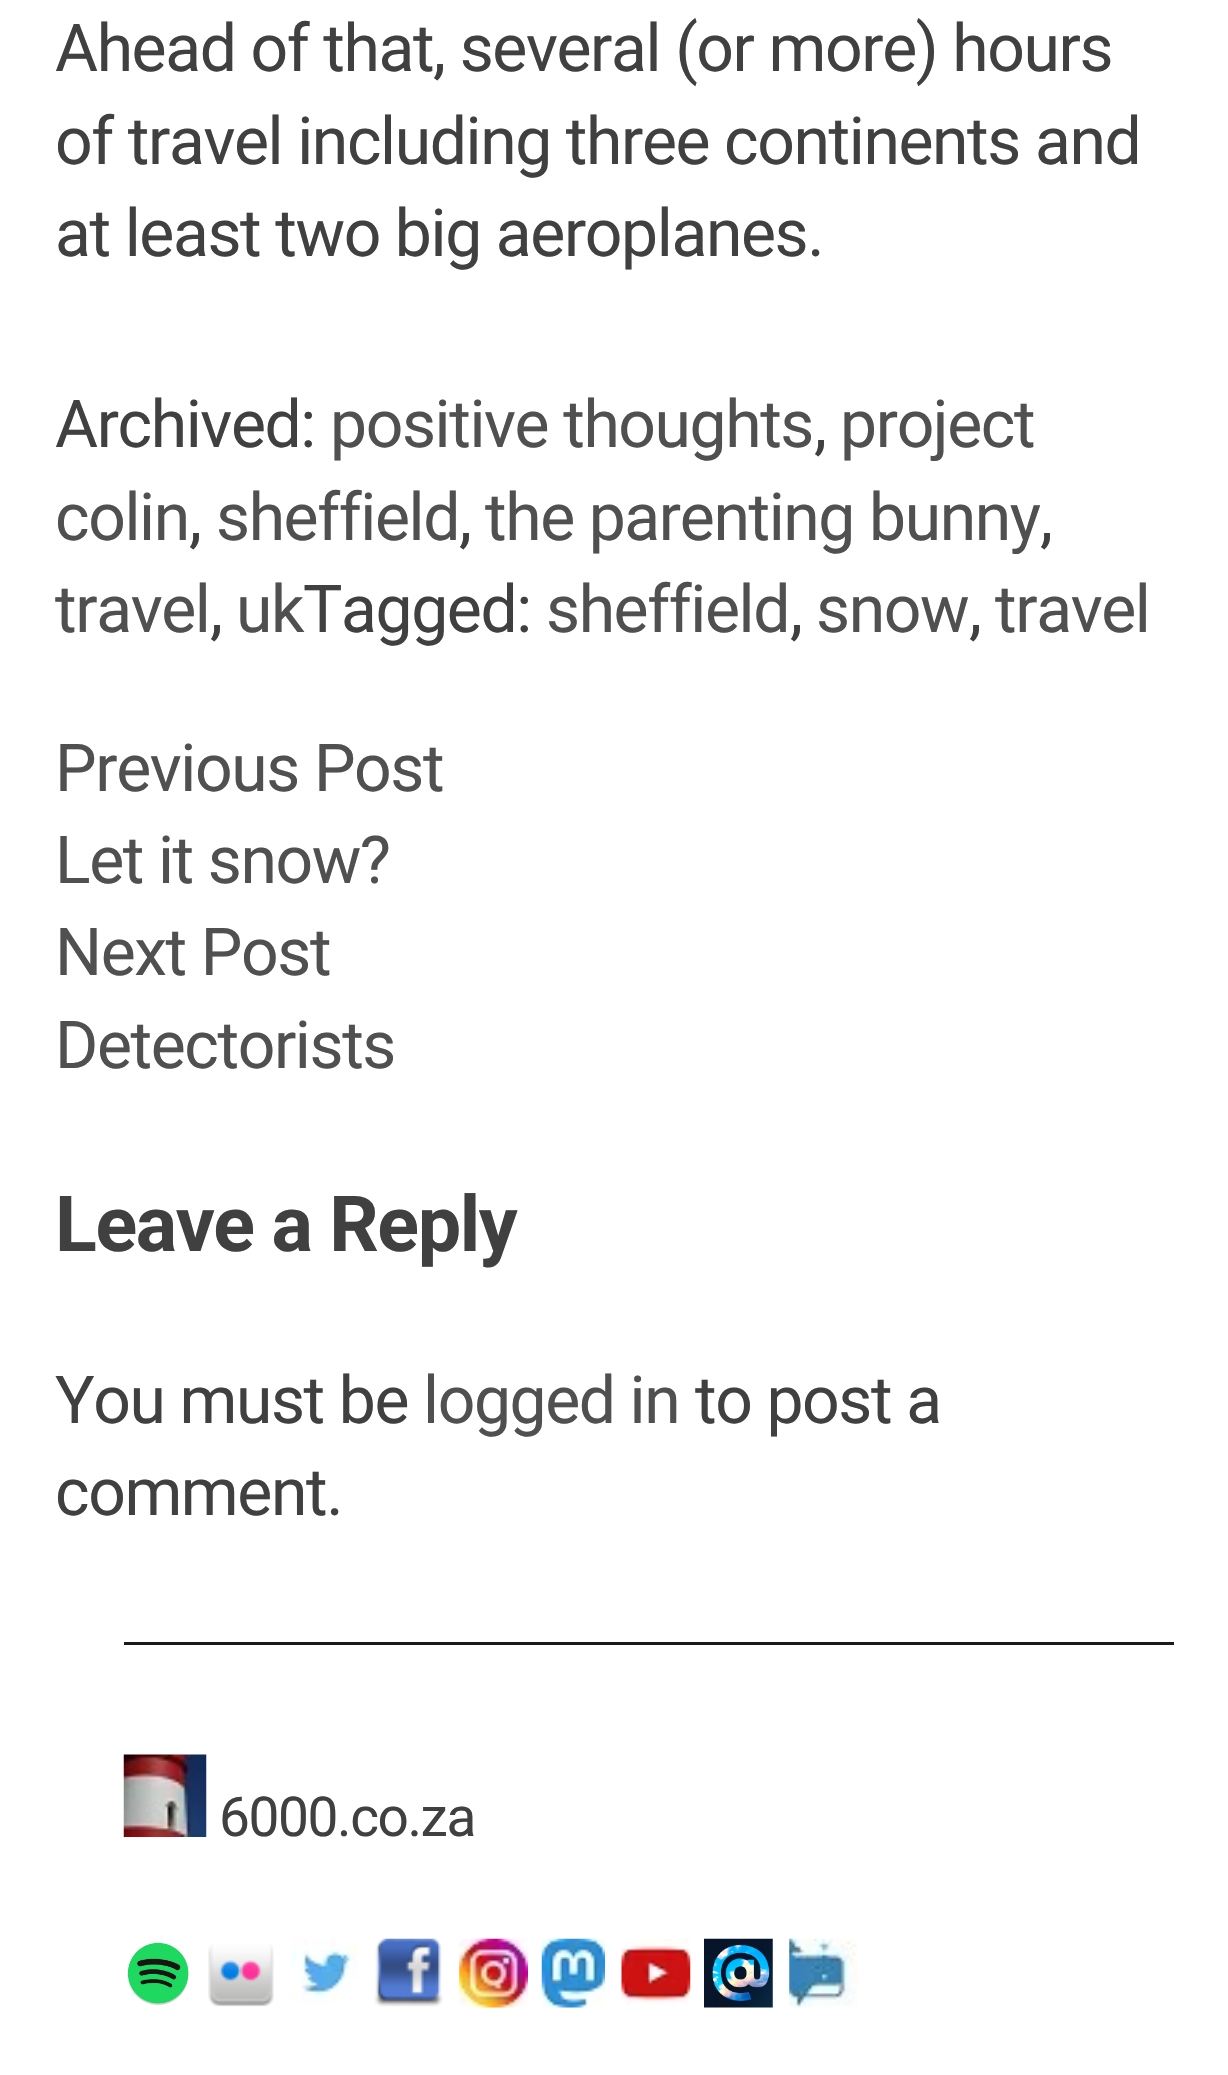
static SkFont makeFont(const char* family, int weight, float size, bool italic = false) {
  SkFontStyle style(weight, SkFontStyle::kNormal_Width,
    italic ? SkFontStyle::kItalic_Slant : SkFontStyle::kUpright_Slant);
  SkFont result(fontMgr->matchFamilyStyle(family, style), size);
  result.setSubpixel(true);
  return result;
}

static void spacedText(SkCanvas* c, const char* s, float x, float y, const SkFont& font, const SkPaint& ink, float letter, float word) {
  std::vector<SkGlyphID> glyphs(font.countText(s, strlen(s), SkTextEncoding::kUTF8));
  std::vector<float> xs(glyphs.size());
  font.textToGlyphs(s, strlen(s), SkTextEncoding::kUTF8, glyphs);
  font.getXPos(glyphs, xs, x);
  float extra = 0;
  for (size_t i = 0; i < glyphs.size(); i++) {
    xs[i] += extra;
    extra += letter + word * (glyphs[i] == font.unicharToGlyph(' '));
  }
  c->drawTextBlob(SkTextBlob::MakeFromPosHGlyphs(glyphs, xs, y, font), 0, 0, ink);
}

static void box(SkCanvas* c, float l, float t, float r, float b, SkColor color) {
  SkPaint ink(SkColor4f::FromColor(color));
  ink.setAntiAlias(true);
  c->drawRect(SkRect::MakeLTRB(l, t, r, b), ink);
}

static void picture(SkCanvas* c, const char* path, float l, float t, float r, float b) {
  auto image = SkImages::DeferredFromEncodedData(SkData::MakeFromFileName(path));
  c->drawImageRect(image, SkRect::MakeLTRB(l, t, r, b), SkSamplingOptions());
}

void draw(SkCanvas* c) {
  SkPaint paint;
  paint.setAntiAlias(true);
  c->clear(0xffffffff);
  SkFont face1 = makeFont("Roboto", 400, 66);
  paint.setColor(0xff404040);
  spacedText(c, "Ahead of that, several (or more) hours", 55, 71, face1, paint, -1.4f, 0);
  spacedText(c, "of travel including three continents and", 55, 164, face1, paint, -1.4f, 0);
  spacedText(c, "at least two big aeroplanes.", 55, 256, face1, paint, -1.4f, 0);
  spacedText(c, "Archived:", 55, 447, face1, paint, -1.4f, 0);
  paint.setColor(0xff505050);
  spacedText(c, "positive thoughts", 330, 447, face1, paint, -1.4f, 0);
  paint.setColor(0xff404040);
  spacedText(c, ",", 814, 447, face1, paint, -1.4f, 0);
  paint.setColor(0xff505050);
  spacedText(c, "project", 840, 447, face1, paint, -1.4f, 0);
  spacedText(c, "colin", 55, 540, face1, paint, -1.4f, 0);
  paint.setColor(0xff404040);
  spacedText(c, ",", 189, 540, face1, paint, -1.4f, 0);
  paint.setColor(0xff505050);
  spacedText(c, "sheffield", 216, 540, face1, paint, -1.4f, 0);
  paint.setColor(0xff404040);
  spacedText(c, ",", 459, 540, face1, paint, -1.4f, 0);
  paint.setColor(0xff505050);
  spacedText(c, "the parenting bunny", 485, 540, face1, paint, -1.4f, 0);
  paint.setColor(0xff404040);
  spacedText(c, ",", 1040, 540, face1, paint, -1.4f, 0);
  paint.setColor(0xff505050);
  spacedText(c, "travel", 55, 632, face1, paint, -1.4f, 0);
  paint.setColor(0xff404040);
  spacedText(c, ",", 210, 632, face1, paint, -1.4f, 0);
  paint.setColor(0xff505050);
  spacedText(c, "uk", 236, 632, face1, paint, -1.4f, 0);
  paint.setColor(0xff404040);
  spacedText(c, "Tagged:", 303, 632, face1, paint, -1.4f, 0);
  paint.setColor(0xff505050);
  spacedText(c, "sheffield", 546, 632, face1, paint, -1.4f, 0);
  paint.setColor(0xff404040);
  spacedText(c, ",", 790, 632, face1, paint, -1.4f, 0);
  paint.setColor(0xff505050);
  spacedText(c, "snow", 816, 632, face1, paint, -1.4f, 0);
  paint.setColor(0xff404040);
  spacedText(c, ",", 969, 632, face1, paint, -1.4f, 0);
  paint.setColor(0xff505050);
  spacedText(c, "travel", 995, 632, face1, paint, -1.4f, 0);
  spacedText(c, "Previous Post", 55, 791, face1, paint, -1.4f, 0);
  spacedText(c, "Let it snow?", 55, 883, face1, paint, -1.4f, 0);
  spacedText(c, "Next Post", 55, 975, face1, paint, -1.4f, 0);
  spacedText(c, "Detectorists", 55, 1068, face1, paint, -1.4f, 0);
  SkFont face2 = makeFont("Roboto", 700, 77.25f);
  paint.setColor(0xff404040);
  spacedText(c, "Leave a Reply", 55, 1251, face2, paint, -1.4f, 0);
  spacedText(c, "You must be", 55, 1423, face1, paint, -1.4f, 0);
  paint.setColor(0xff505050);
  spacedText(c, "logged in", 423, 1423, face1, paint, -1.4f, 0);
  paint.setColor(0xff404040);
  spacedText(c, "to post a", 695, 1423, face1, paint, -1.4f, 0);
  spacedText(c, "comment.", 55, 1515, face1, paint, -1.4f, 0);
  box(c, 124, 1642, 1174, 1645, 0xff1a1a1a);
  picture(c, "img_01.png", 123, 1754, 207, 1837);
  SkFont face3 = makeFont("Roboto", 400, 55);
  spacedText(c, "6000.co.za", 219, 1836, face3, paint, -1.4f, 0);
  picture(c, "img_02.png", 127, 1942, 189, 2006);
  picture(c, "img_03.png", 208, 1944, 274, 2007);
  picture(c, "img_04.png", 291, 1939, 358, 2005);
  picture(c, "img_05.png", 374, 1938, 443, 2007);
  picture(c, "img_06.png", 459, 1938, 528, 2008);
  picture(c, "img_07.png", 541, 1938, 605, 2008);
  picture(c, "img_08.png", 621, 1939, 691, 2005);
  picture(c, "img_09.png", 704, 1938, 773, 2008);
  picture(c, "img_10.png", 789, 1938, 858, 2008);
}
